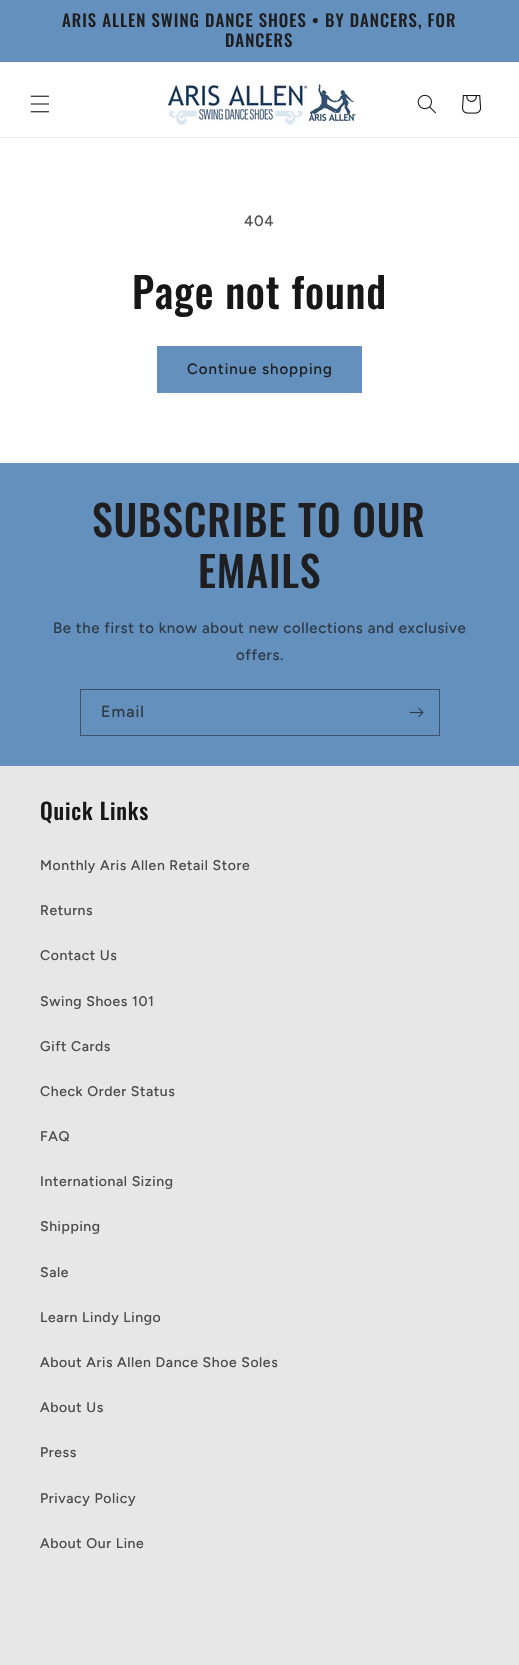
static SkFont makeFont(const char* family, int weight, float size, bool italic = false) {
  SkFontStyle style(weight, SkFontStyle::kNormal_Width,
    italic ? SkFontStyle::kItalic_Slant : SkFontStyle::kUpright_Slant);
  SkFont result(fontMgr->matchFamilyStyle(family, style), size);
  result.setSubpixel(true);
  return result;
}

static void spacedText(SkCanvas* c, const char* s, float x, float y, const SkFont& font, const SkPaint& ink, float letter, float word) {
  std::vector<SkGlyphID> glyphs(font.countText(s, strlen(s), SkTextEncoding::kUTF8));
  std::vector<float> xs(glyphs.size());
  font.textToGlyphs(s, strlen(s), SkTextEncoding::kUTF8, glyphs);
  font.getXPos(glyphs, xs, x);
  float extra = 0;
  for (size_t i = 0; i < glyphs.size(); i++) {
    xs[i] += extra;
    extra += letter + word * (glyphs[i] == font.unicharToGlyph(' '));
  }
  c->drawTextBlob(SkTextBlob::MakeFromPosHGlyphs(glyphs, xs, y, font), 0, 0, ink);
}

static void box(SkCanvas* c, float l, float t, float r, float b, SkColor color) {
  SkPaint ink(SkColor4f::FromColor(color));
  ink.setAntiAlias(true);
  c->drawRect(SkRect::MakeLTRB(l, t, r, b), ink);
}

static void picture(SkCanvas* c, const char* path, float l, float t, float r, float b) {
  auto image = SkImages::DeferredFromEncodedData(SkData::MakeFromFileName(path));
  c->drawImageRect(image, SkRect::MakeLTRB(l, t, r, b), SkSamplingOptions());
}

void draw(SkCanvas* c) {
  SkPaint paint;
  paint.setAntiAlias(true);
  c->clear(0xffffffff);
  box(c, 0, 0, 519, 61, 0xff6390bd);
  box(c, 0, 61, 519, 62, 0xff5e87b1);
  SkFont face1 = makeFont("Oswald", 500, 16.8f);
  paint.setColor(0xff1f1f21);
  spacedText(c, "ARIS ALLEN SWING DANCE SHOES • BY DANCERS, FOR", 62, 27, face1, paint, 1, 0);
  spacedText(c, "DANCERS", 225, 47, face1, paint, 1, 0);
  box(c, 0, 137, 519, 138, 0xffececed);
  picture(c, "img_01.png", 30, 95, 50, 113);
  picture(c, "img_02.png", 168, 79, 356, 127);
  picture(c, "img_03.png", 417, 94, 436, 114);
  picture(c, "img_04.png", 462, 95, 482, 114);
  SkFont face2 = makeFont("Figtree", 500, 15);
  paint.setColor(0xff515152);
  spacedText(c, "404", 244, 226, face2, paint, 0.6f, 0);
  SkFont face3 = makeFont("Oswald", 500, 42);
  paint.setColor(0xff171718);
  spacedText(c, "Page not found", 132, 309, face3, paint, 0.8f, 0);
  box(c, 157, 346, 362, 393, 0xff6390bd);
  paint.setColor(0xff1f1f21);
  spacedText(c, "Continue shopping", 187, 374, face2, paint, 1, 0);
  box(c, 0, 463, 519, 766, 0xff6390bd);
  spacedText(c, "SUBSCRIBE TO OUR", 92, 537, face3, paint, 0.8f, 0);
  spacedText(c, "EMAILS", 198, 588, face3, paint, 0.8f, 0);
  paint.setColor(0xff303b48);
  spacedText(c, "Be the first to know about new collections and exclusive", 53, 633, face2, paint, 0.6f, 0);
  spacedText(c, "offers.", 236, 660, face2, paint, 0.6f, 0);
  paint.setStyle(SkPaint::kStroke_Style);
  paint.setStrokeWidth(1);
  paint.setColor(0xff3e5267);
  c->drawRect(SkRect::MakeLTRB(80.5f, 689.5f, 439.5f, 735.5f), paint);
  SkFont face4 = makeFont("Figtree", 500, 16);
  paint.setStyle(SkPaint::kFill_Style);
  paint.setColor(0xff303b48);
  spacedText(c, "Email", 101, 717, face4, paint, 1, 0);
  picture(c, "img_05.png", 409, 707, 424, 718);
  box(c, 0, 766, 519, 1665, 0xffe7e7e7);
  SkFont face5 = makeFont("Oswald", 500, 22.5f);
  paint.setColor(0xff171718);
  spacedText(c, "Quick Links", 40, 820, face5, paint, 0.8f, 0);
  SkFont face6 = makeFont("Figtree", 500, 14);
  paint.setColor(0xff4b4b4c);
  spacedText(c, "Monthly Aris Allen Retail Store", 40, 870, face6, paint, 0.6f, 0);
  spacedText(c, "Returns", 40, 915, face6, paint, 0.6f, 0);
  spacedText(c, "Contact Us", 40, 960, face6, paint, 0.6f, 0);
  spacedText(c, "Swing Shoes 101", 40, 1006, face6, paint, 0.6f, 0);
  spacedText(c, "Gift Cards", 40, 1051, face6, paint, 0.6f, 0);
  spacedText(c, "Check Order Status", 40, 1096, face6, paint, 0.6f, 0);
  spacedText(c, "FAQ", 40, 1141, face6, paint, 0.6f, 0);
  spacedText(c, "International Sizing", 40, 1186, face6, paint, 0.6f, 0);
  spacedText(c, "Shipping", 40, 1231, face6, paint, 0.6f, 0);
  spacedText(c, "Sale", 40, 1277, face6, paint, 0.6f, 0);
  spacedText(c, "Learn Lindy Lingo", 40, 1322, face6, paint, 0.6f, 0);
  spacedText(c, "About Aris Allen Dance Shoe Soles", 40, 1367, face6, paint, 0.6f, 0);
  spacedText(c, "About Us", 40, 1412, face6, paint, 0.6f, 0);
  spacedText(c, "Press", 40, 1457, face6, paint, 0.6f, 0);
  spacedText(c, "Privacy Policy", 40, 1503, face6, paint, 0.6f, 0);
  spacedText(c, "About Our Line", 40, 1548, face6, paint, 0.6f, 0);
}
